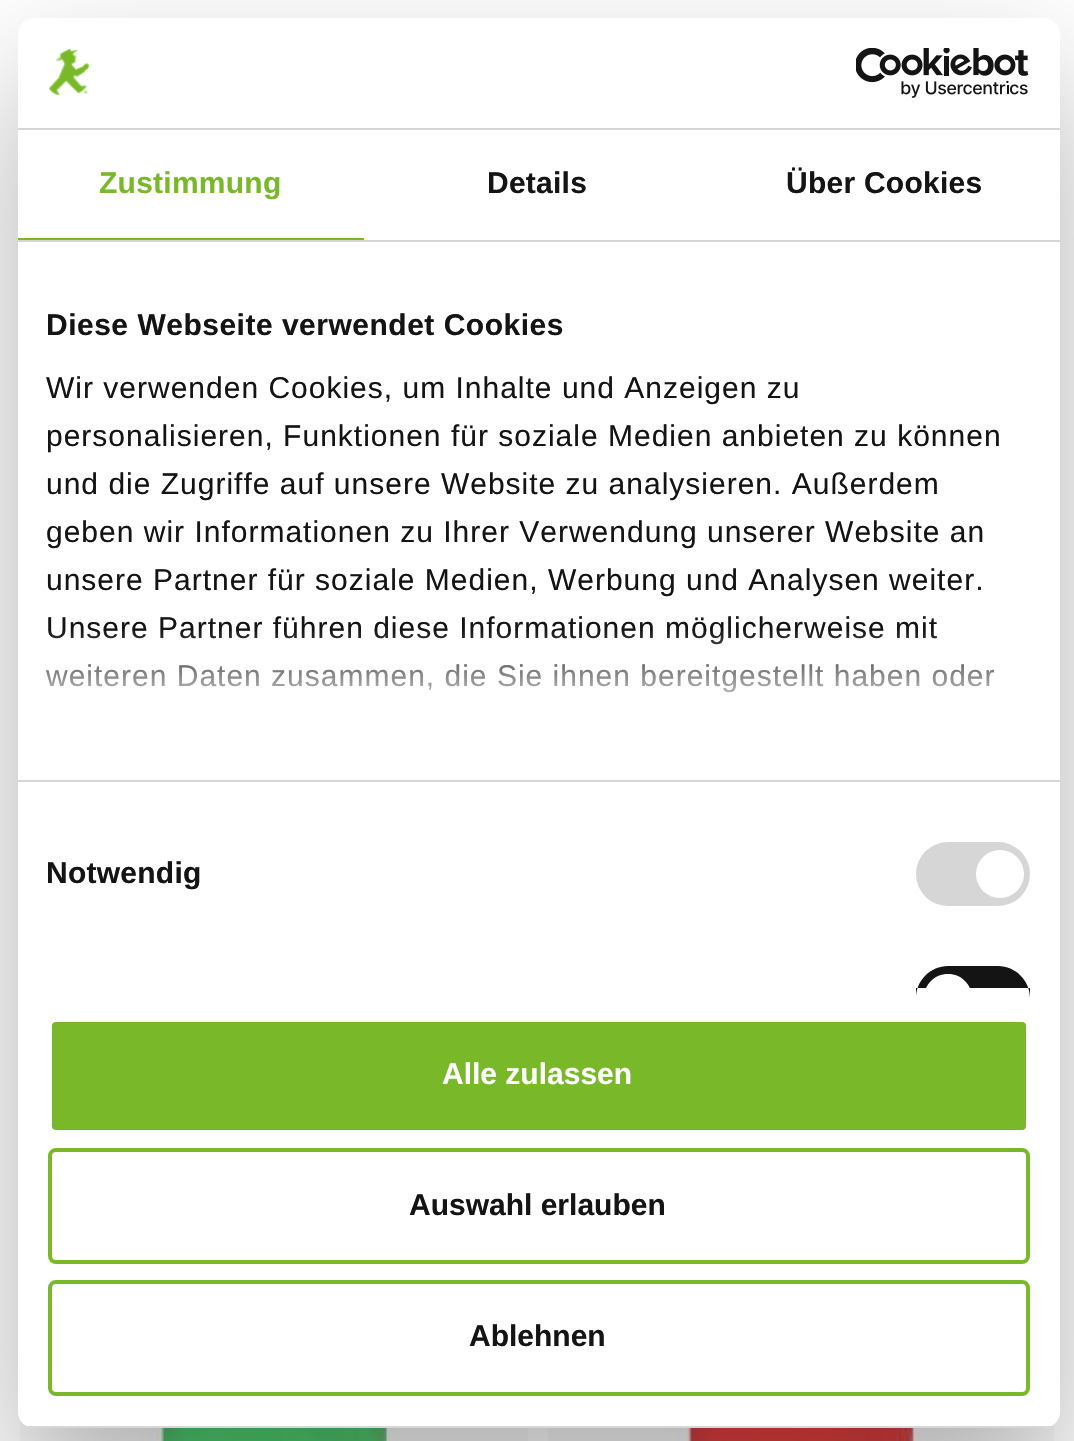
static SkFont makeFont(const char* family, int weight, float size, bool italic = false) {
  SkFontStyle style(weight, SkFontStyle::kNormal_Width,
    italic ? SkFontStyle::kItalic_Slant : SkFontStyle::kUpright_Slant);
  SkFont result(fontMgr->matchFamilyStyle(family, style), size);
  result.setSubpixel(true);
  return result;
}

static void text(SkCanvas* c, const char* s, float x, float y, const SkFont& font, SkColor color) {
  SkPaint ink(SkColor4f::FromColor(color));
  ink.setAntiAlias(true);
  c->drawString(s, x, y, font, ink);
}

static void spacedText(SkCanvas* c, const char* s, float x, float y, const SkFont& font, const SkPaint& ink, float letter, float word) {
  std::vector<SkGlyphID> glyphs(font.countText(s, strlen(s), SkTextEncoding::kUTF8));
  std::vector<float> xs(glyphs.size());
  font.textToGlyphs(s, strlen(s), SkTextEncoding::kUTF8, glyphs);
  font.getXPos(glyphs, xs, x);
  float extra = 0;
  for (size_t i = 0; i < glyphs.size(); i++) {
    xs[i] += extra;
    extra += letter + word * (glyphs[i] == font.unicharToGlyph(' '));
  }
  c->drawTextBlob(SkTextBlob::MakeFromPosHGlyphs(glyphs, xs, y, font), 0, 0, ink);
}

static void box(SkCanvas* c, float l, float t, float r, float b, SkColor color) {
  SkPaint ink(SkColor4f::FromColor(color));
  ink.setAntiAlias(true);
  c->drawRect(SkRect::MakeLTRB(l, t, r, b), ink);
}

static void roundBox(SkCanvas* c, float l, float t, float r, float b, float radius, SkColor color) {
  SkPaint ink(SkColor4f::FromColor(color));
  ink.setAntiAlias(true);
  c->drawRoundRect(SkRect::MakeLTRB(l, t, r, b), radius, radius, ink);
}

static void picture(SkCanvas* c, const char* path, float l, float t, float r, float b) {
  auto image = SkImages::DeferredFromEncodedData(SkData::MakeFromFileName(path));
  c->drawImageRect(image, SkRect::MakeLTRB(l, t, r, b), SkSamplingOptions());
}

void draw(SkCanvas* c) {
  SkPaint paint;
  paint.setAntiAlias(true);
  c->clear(0xffffffff);
  picture(c, "img_03.png", 20, 1419, 528, 1441);
  picture(c, "img_04.png", 548, 1424, 1054, 1441);
  paint.setColor(0x4d000000);
  paint.setMaskFilter(SkMaskFilter::MakeBlur(kNormal_SkBlurStyle, 68));
  c->drawRoundRect(SkRect::MakeLTRB(18, 82, 1060, 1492), 16, 16, paint);
  paint.setMaskFilter(nullptr);
  roundBox(c, 18, 18, 1060, 1428, 16, 0xffffffff);
  box(c, 18, 128, 1060, 130, 0xffd6d6d6);
  picture(c, "img_01.png", 48, 49, 90, 95);
  picture(c, "img_02.png", 856, 48, 1029, 98);
  box(c, 18, 240, 1060, 242, 0xffd6d6d6);
  box(c, 18, 238, 364, 240, 0xff78b829);
  SkFont face1 = makeFont("Liberation Sans", 700, 30);
  paint.setColor(0xff78b829);
  spacedText(c, "Zustimmung", 99, 193, face1, paint, 0.25f, 0);
  paint.setColor(0xff141414);
  spacedText(c, "Details", 487, 193, face1, paint, 0.25f, 0);
  spacedText(c, "Über Cookies", 786, 193, face1, paint, 0.25f, 0);
  box(c, 18, 780, 1060, 782, 0xffd6d6d6);
  spacedText(c, "Diese Webseite verwendet Cookies", 46, 335, face1, paint, 0.5f, 0);
  SkFont face2 = makeFont("Liberation Sans", 400, 30);
  spacedText(c, "Wir verwenden Cookies, um Inhalte und Anzeigen zu", 46, 398, face2, paint, 1, 0);
  spacedText(c, "personalisieren, Funktionen für soziale Medien anbieten zu können", 46, 446, face2, paint, 1, 0);
  spacedText(c, "und die Zugriffe auf unsere Website zu analysieren. Außerdem", 46, 494, face2, paint, 1, 0);
  spacedText(c, "geben wir Informationen zu Ihrer Verwendung unserer Website an", 46, 542, face2, paint, 1, 0);
  spacedText(c, "unsere Partner für soziale Medien, Werbung und Analysen weiter.", 46, 590, face2, paint, 1, 0);
  spacedText(c, "Unsere Partner führen diese Informationen möglicherweise mit", 46, 638, face2, paint, 1, 0);
  spacedText(c, "weiteren Daten zusammen, die Sie ihnen bereitgestellt haben oder", 46, 686, face2, paint, 1, 0);
  {
    const SkColor colors[] = {0xffffffff, 0xccffffff, 0x00ffffff};
    const float stops[] = {0, 0.5f, 1};
    const SkPoint ends[] = {{525, 779}, {525, 629}};
    paint.setShader(SkGradientShader::MakeLinear(ends, colors, stops, 3, SkTileMode::kClamp));
    paint.setAlpha(255);
  }
  c->drawRect(SkRect::MakeLTRB(46, 631, 995, 693), paint);
  paint.setShader(nullptr);
  paint.setColor(0xff141414);
  spacedText(c, "Notwendig", 46, 883, face1, paint, 0.25f, 0);
  roundBox(c, 916, 842, 1030, 906, 32, 0xffd6d6d6);
  paint.setColor(0xffffffff);
  c->drawCircle(1000, 874, 24, paint);
  paint.setColor(0xff141414);
  c->drawPath(SkPathBuilder().moveTo(948, 966).lineTo(998, 966).cubicTo(1015.5f, 966, 1030, 980.5f, 1030, 998).lineTo(1030, 988).lineTo(916, 988).lineTo(916, 998).cubicTo(916, 980.5f, 930.5f, 966, 948, 966).close().detach(), paint);
  paint.setColor(0xffffffff);
  c->drawPath(SkPathBuilder().moveTo(948, 974).cubicTo(961.5f, 974, 972, 984.5f, 972, 998).lineTo(972, 988).lineTo(924, 988).lineTo(924, 998).cubicTo(924, 984.5f, 934.5f, 974, 948, 974).close().detach(), paint);
  c->save();
  c->clipPath(SkPathBuilder().moveTo(34, 18).lineTo(1044, 18).cubicTo(1053, 18, 1060, 25, 1060, 34).lineTo(1060, 1412).cubicTo(1060, 1421, 1053, 1428, 1044, 1428).lineTo(34, 1428).cubicTo(25, 1428, 18, 1421, 18, 1412).lineTo(18, 34).cubicTo(18, 25, 25, 18, 34, 18).close().detach(), true);
  box(c, 18, 1426, 1060, 1428, 0xffd6d6d6);
  c->restore();
  paint.setColor(0xff78b829);
  c->drawRoundRect(SkRect::MakeLTRB(50, 1020, 1028, 1132), 6, 6, paint);
  paint.setStyle(SkPaint::kStroke_Style);
  paint.setStrokeWidth(4);
  paint.setColor(0xffffffff);
  c->drawRoundRect(SkRect::MakeLTRB(50, 1020, 1028, 1132), 6, 6, paint);
  text(c, "Alle zulassen", 442, 1084, face1, 0xffffffff);
  paint.setColor(0xff78b829);
  c->drawRoundRect(SkRect::MakeLTRB(50, 1150, 1028, 1262), 6, 6, paint);
  text(c, "Auswahl erlauben", 409, 1215, face1, 0xff141414);
  c->drawRoundRect(SkRect::MakeLTRB(50, 1282, 1028, 1394), 6, 6, paint);
  text(c, "Ablehnen", 469, 1346, face1, 0xff141414);
}
